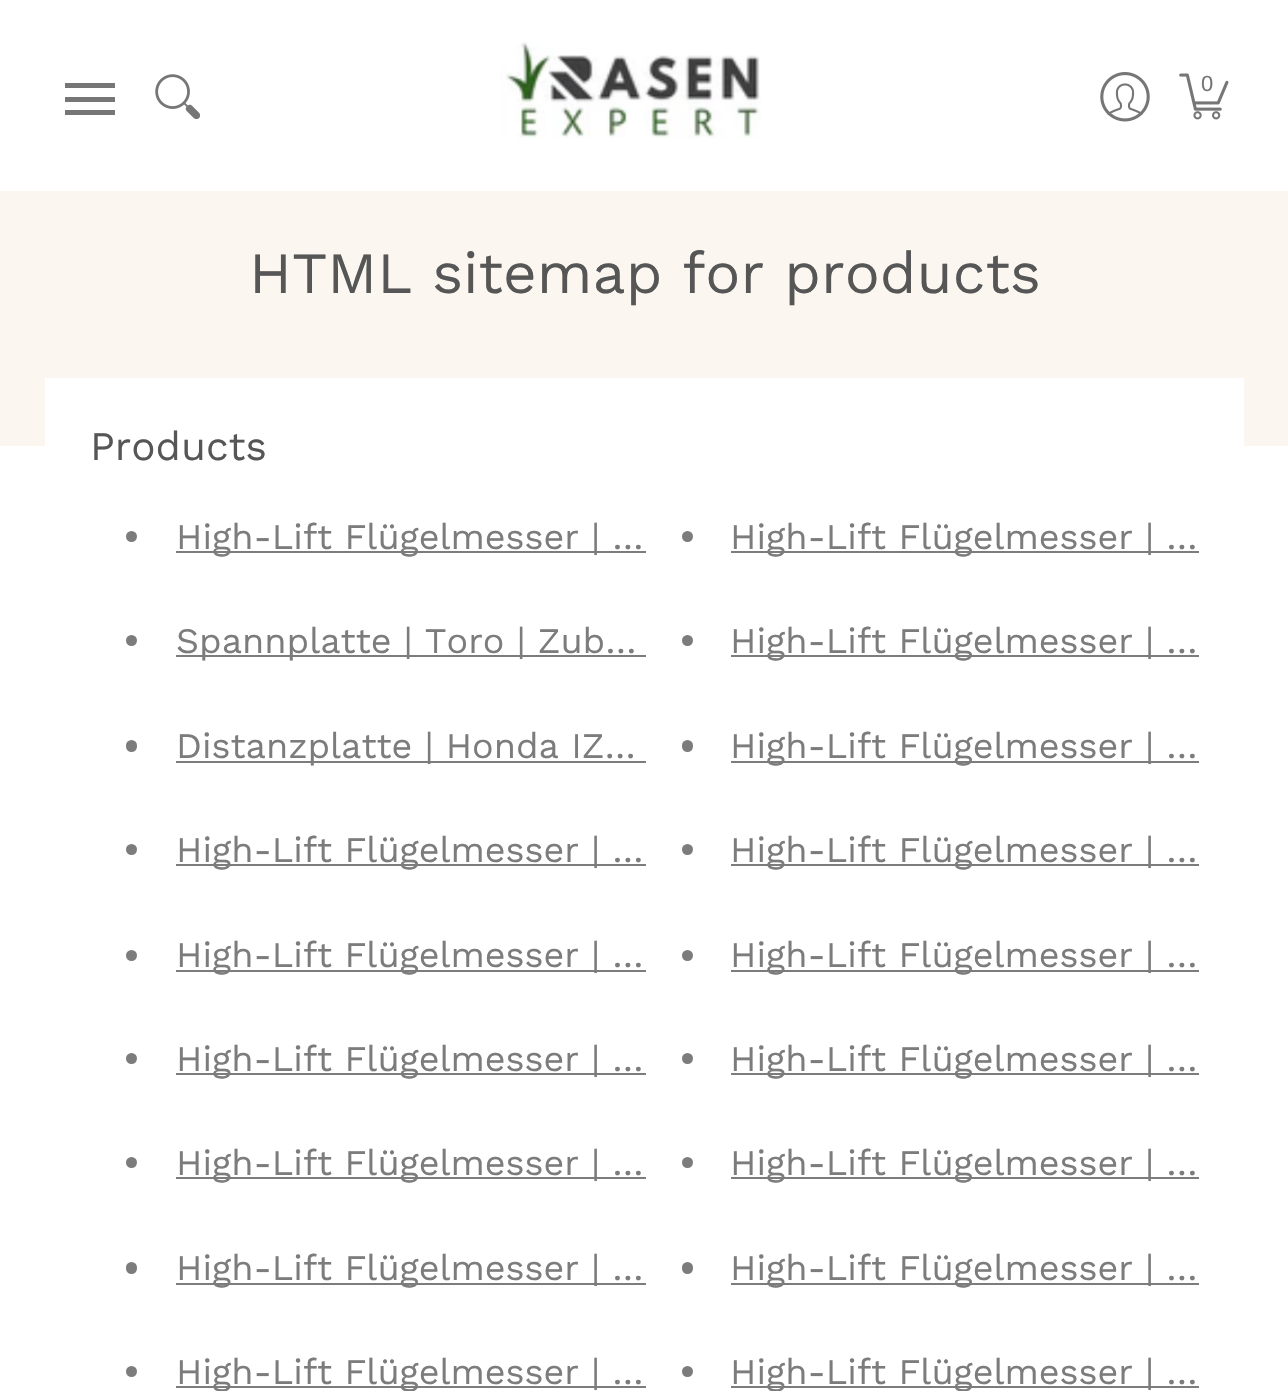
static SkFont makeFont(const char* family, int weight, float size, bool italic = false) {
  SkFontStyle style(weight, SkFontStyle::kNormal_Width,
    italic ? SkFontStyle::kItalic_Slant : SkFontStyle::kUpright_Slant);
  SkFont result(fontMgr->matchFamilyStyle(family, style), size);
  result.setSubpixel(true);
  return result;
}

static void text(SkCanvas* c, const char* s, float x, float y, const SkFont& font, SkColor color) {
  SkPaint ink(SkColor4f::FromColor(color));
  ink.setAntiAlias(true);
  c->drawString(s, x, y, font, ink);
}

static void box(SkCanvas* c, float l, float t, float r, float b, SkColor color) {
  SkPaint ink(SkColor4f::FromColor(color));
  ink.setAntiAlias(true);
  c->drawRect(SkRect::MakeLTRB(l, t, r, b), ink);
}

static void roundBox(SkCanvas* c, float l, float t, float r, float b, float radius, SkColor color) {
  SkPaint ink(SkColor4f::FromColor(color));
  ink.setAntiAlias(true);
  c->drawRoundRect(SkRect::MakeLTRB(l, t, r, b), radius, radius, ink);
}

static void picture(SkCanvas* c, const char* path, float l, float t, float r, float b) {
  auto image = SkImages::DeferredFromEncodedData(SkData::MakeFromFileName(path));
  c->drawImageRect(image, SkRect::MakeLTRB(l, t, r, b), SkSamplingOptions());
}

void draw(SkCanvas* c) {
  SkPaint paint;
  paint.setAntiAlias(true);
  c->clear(0xffffffff);
  box(c, 65, 83, 115, 88, 0xff767676);
  box(c, 65, 110, 115, 115, 0xff767676);
  box(c, 65, 97, 115, 102, 0xff767676);
  picture(c, "img_01.png", 155, 74, 200, 119);
  picture(c, "img_02.png", 500, 42, 761, 139);
  picture(c, "img_03.png", 1100, 72, 1150, 122);
  picture(c, "img_04.png", 1179, 73, 1229, 120);
  SkFont face1 = makeFont("Liberation Sans", 400, 22);
  text(c, "0", 1201, 91, face1, 0xff767676);
  box(c, 0, 191, 1288, 446, 0xfffbf7f0);
  SkFont face2 = makeFont("Work Sans", 400, 58.5f);
  text(c, "HTML sitemap for products", 249, 293, face2, 0xff565656);
  box(c, 45, 378, 1244, 446, 0xffffffff);
  SkFont face3 = makeFont("Work Sans", 400, 40.5f);
  text(c, "Products", 90, 460, face3, 0xff565656);
  paint.setColor(0xff7c7c7c);
  c->drawCircle(131.5f, 536.5f, 5.5f, paint);
  box(c, 176, 551, 646, 553, 0xff7c7c7c);
  SkFont face4 = makeFont("Work Sans", 400, 36);
  text(c, "High-Lift Flügelmesser | …", 176, 549, face4, 0xff7c7c7c);
  c->drawCircle(687.5f, 536.5f, 5.5f, paint);
  box(c, 731, 551, 1199, 553, 0xff7c7c7c);
  text(c, "High-Lift Flügelmesser | …", 730, 549, face4, 0xff7c7c7c);
  c->drawCircle(131.5f, 640.5f, 5.5f, paint);
  box(c, 176, 655, 646, 657, 0xff7c7c7c);
  text(c, "Spannplatte | Toro | Zub…", 176, 653, face4, 0xff7c7c7c);
  c->drawCircle(687.5f, 640.5f, 5.5f, paint);
  box(c, 731, 655, 1199, 657, 0xff7c7c7c);
  text(c, "High-Lift Flügelmesser | …", 730, 653, face4, 0xff7c7c7c);
  roundBox(c, 126, 740, 137, 752, 5.5f, 0xff7c7c7c);
  box(c, 176, 761, 646, 763, 0xff7c7c7c);
  text(c, "Distanzplatte | Honda IZ…", 176, 758, face4, 0xff7c7c7c);
  roundBox(c, 682, 740, 693, 752, 5.5f, 0xff7c7c7c);
  box(c, 731, 761, 1199, 763, 0xff7c7c7c);
  text(c, "High-Lift Flügelmesser | …", 730, 758, face4, 0xff7c7c7c);
  c->drawCircle(131.5f, 849.5f, 5.5f, paint);
  box(c, 176, 864, 646, 866, 0xff7c7c7c);
  text(c, "High-Lift Flügelmesser | …", 176, 862, face4, 0xff7c7c7c);
  c->drawCircle(687.5f, 849.5f, 5.5f, paint);
  box(c, 731, 864, 1199, 866, 0xff7c7c7c);
  text(c, "High-Lift Flügelmesser | …", 730, 862, face4, 0xff7c7c7c);
  c->drawCircle(131.5f, 955.5f, 5.5f, paint);
  box(c, 176, 970, 646, 972, 0xff7c7c7c);
  text(c, "High-Lift Flügelmesser | …", 176, 967, face4, 0xff7c7c7c);
  c->drawCircle(687.5f, 955.5f, 5.5f, paint);
  box(c, 731, 970, 1199, 972, 0xff7c7c7c);
  text(c, "High-Lift Flügelmesser | …", 730, 967, face4, 0xff7c7c7c);
  c->drawCircle(131.5f, 1058.5f, 5.5f, paint);
  box(c, 176, 1073, 646, 1075, 0xff7c7c7c);
  text(c, "High-Lift Flügelmesser | …", 176, 1071, face4, 0xff7c7c7c);
  c->drawCircle(687.5f, 1058.5f, 5.5f, paint);
  box(c, 731, 1073, 1199, 1075, 0xff7c7c7c);
  text(c, "High-Lift Flügelmesser | …", 730, 1071, face4, 0xff7c7c7c);
  c->drawCircle(131.5f, 1162.5f, 5.5f, paint);
  box(c, 176, 1177, 646, 1179, 0xff7c7c7c);
  text(c, "High-Lift Flügelmesser | …", 176, 1175, face4, 0xff7c7c7c);
  c->drawCircle(687.5f, 1162.5f, 5.5f, paint);
  box(c, 731, 1177, 1199, 1179, 0xff7c7c7c);
  text(c, "High-Lift Flügelmesser | …", 730, 1175, face4, 0xff7c7c7c);
  roundBox(c, 126, 1262, 137, 1274, 5.5f, 0xff7c7c7c);
  box(c, 176, 1283, 646, 1285, 0xff7c7c7c);
  text(c, "High-Lift Flügelmesser | …", 176, 1280, face4, 0xff7c7c7c);
  roundBox(c, 682, 1262, 693, 1274, 5.5f, 0xff7c7c7c);
  box(c, 731, 1283, 1199, 1285, 0xff7c7c7c);
  text(c, "High-Lift Flügelmesser | …", 730, 1280, face4, 0xff7c7c7c);
  c->drawCircle(131.5f, 1371.5f, 5.5f, paint);
  box(c, 176, 1386, 646, 1388, 0xff7c7c7c);
  text(c, "High-Lift Flügelmesser | …", 176, 1384, face4, 0xff7c7c7c);
  c->drawCircle(687.5f, 1371.5f, 5.5f, paint);
  box(c, 731, 1386, 1199, 1388, 0xff7c7c7c);
  text(c, "High-Lift Flügelmesser | …", 730, 1384, face4, 0xff7c7c7c);
}
